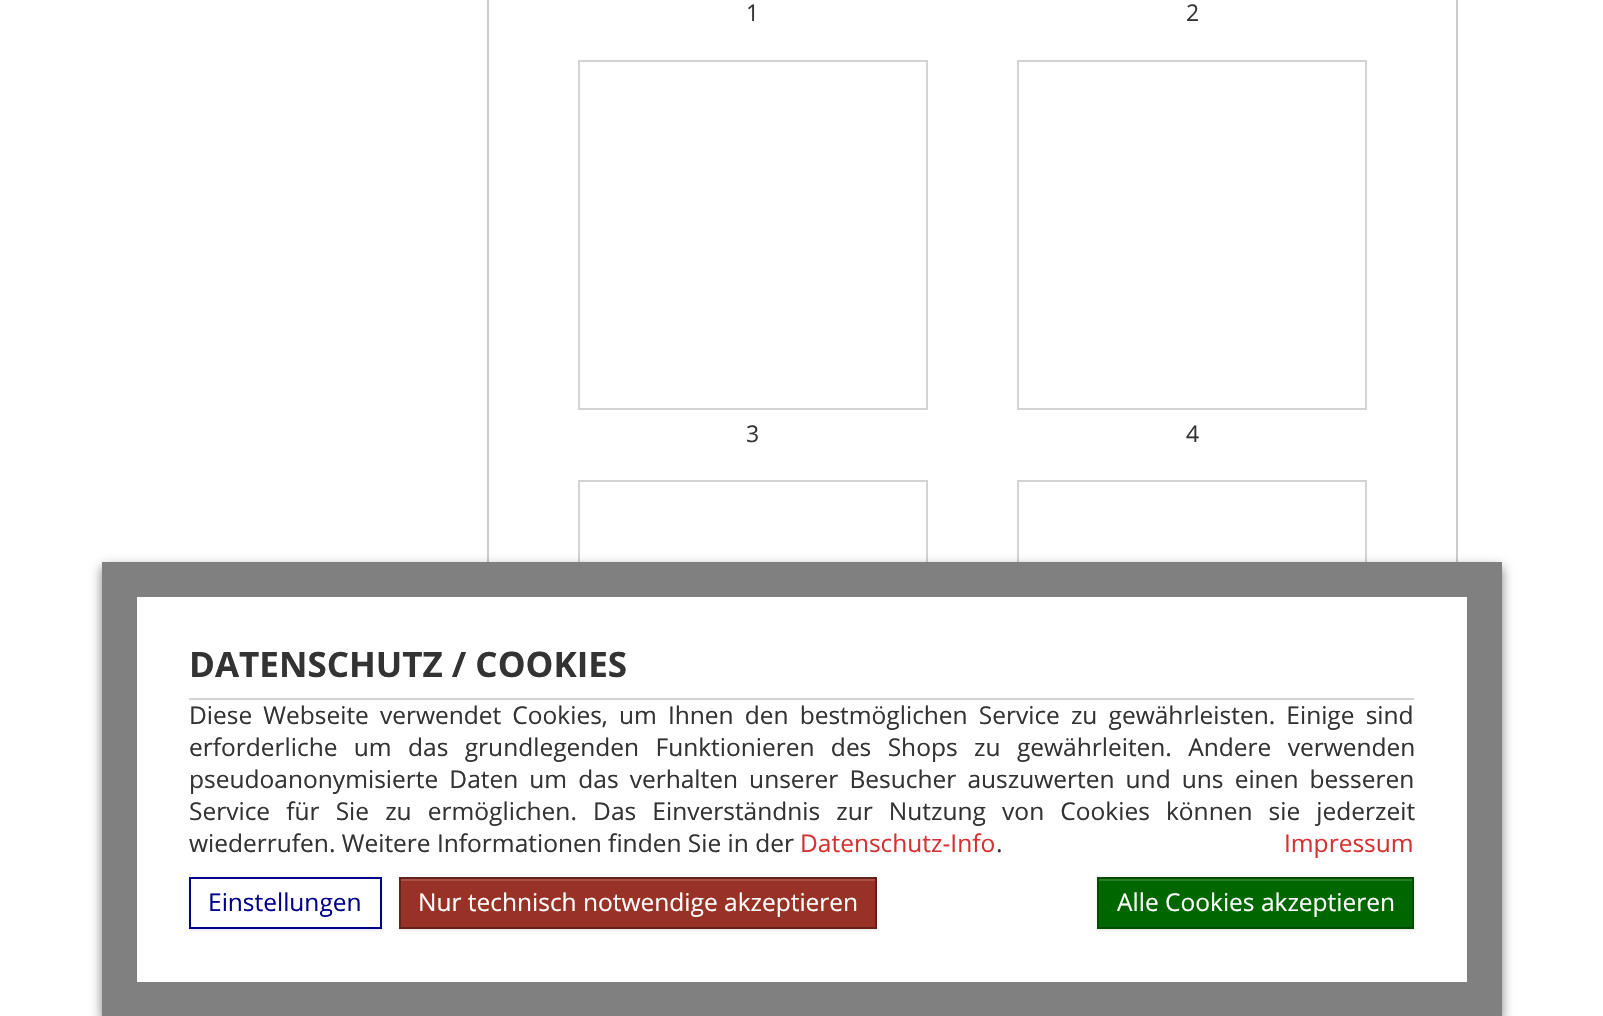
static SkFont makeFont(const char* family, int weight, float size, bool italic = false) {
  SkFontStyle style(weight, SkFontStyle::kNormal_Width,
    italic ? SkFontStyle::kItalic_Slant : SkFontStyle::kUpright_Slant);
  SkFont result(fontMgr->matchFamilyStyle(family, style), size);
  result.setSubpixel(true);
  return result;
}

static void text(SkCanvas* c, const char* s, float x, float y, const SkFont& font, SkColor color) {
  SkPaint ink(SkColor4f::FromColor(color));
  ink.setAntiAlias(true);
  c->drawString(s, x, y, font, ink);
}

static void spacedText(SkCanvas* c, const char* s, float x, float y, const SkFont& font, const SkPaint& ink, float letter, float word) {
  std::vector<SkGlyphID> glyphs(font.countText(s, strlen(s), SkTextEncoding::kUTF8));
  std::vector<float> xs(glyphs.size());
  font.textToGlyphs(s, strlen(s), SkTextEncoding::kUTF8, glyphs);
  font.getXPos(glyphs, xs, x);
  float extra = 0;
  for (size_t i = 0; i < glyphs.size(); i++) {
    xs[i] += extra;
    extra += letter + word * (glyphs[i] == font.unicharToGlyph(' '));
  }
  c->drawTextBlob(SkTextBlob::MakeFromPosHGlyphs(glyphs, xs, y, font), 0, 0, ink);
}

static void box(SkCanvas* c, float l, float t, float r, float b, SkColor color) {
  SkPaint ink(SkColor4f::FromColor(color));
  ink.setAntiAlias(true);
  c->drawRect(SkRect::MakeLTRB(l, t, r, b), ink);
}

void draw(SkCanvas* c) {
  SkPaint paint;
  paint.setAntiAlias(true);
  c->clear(0xffffffff);
  paint.setStyle(SkPaint::kStroke_Style);
  paint.setStrokeWidth(2);
  paint.setColor(0xffcccccc);
  c->drawRect(SkRect::MakeLTRB(488, -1, 1457, 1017), paint);
  SkFont face1 = makeFont("Open Sans", 400, 23);
  text(c, "1", 746, 21, face1, 0xff333333);
  text(c, "2", 1186, 21, face1, 0xff333333);
  paint.setColor(0xffd3d3d3);
  c->drawRect(SkRect::MakeLTRB(579, 61, 927, 409), paint);
  text(c, "3", 746, 442, face1, 0xff333333);
  c->drawRect(SkRect::MakeLTRB(1018, 61, 1366, 409), paint);
  text(c, "4", 1186, 442, face1, 0xff333333);
  c->drawRect(SkRect::MakeLTRB(579, 481, 927, 829), paint);
  c->drawRect(SkRect::MakeLTRB(1018, 481, 1366, 829), paint);
  paint.setStyle(SkPaint::kFill_Style);
  paint.setColor(0x80000000);
  paint.setMaskFilter(SkMaskFilter::MakeBlur(kNormal_SkBlurStyle, 5.5f));
  c->drawRect(SkRect::MakeLTRB(102, 567, 1502, 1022), paint);
  paint.setMaskFilter(nullptr);
  paint.setColor(0xffffffff);
  c->drawRect(SkRect::MakeLTRB(119.5f, 579.5f, 1484.5f, 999.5f), paint);
  paint.setStyle(SkPaint::kStroke_Style);
  paint.setStrokeWidth(35);
  paint.setColor(0xff808080);
  c->drawRect(SkRect::MakeLTRB(119.5f, 579.5f, 1484.5f, 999.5f), paint);
  box(c, 189, 698, 1414, 700, 0xffd3d3d3);
  SkFont face2 = makeFont("Open Sans", 700, 35);
  text(c, "DATENSCHUTZ / COOKIES", 189, 677, face2, 0xff333333);
  SkFont face3 = makeFont("Open Sans", 400, 24.5f);
  paint.setStyle(SkPaint::kFill_Style);
  paint.setColor(0xff333333);
  spacedText(c, "Diese Webseite verwendet Cookies, um Ihnen den bestmöglichen Service zu gewährleisten. Einige sind", 189, 724, face3, paint, 0, 4.75f);
  spacedText(c, "erforderliche um das grundlegenden Funktionieren des Shops zu gewährleiten. Andere verwenden", 189, 756, face3, paint, 0, 10);
  spacedText(c, "pseudoanonymisierte Daten um das verhalten unserer Besucher auszuwerten und uns einen besseren", 189, 788, face3, paint, 0, 4.75f);
  spacedText(c, "Service für Sie zu ermöglichen. Das Einverständnis zur Nutzung von Cookies können sie jederzeit", 189, 820, face3, paint, 0, 9.75f);
  text(c, "wiederrufen. Weitere Informationen finden Sie in der", 189, 852, face3, 0xff333333);
  text(c, "Datenschutz-Info", 800, 852, face3, 0xffd63131);
  text(c, ".", 996, 852, face3, 0xff333333);
  text(c, "Impressum", 1284, 852, face3, 0xffd63131);
  c->save();
  c->clipPath(SkPathBuilder(SkPathFillType::kEvenOdd).moveTo(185, 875).lineTo(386, 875).lineTo(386, 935).lineTo(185, 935).close().moveTo(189, 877).lineTo(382, 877).lineTo(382, 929).lineTo(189, 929).close().detach(), true);
  paint.setColor(0x12000000);
  paint.setMaskFilter(SkMaskFilter::MakeBlur(kNormal_SkBlurStyle, 1));
  c->drawRect(SkRect::MakeLTRB(189, 879, 382, 931), paint);
  paint.setMaskFilter(nullptr);
  c->restore();
  paint.setStyle(SkPaint::kStroke_Style);
  paint.setStrokeWidth(2);
  paint.setColor(0xff00008b);
  c->drawRect(SkRect::MakeLTRB(190, 878, 381, 928), paint);
  text(c, "Einstellungen", 208, 911, face3, 0xff00008b);
  paint.setStyle(SkPaint::kFill_Style);
  paint.setColor(0x12000000);
  paint.setMaskFilter(SkMaskFilter::MakeBlur(kNormal_SkBlurStyle, 1));
  c->drawRect(SkRect::MakeLTRB(399, 879, 877, 931), paint);
  paint.setMaskFilter(nullptr);
  box(c, 401, 881, 875, 927, 0xff983226);
  box(c, 401, 879, 875, 881, 0xffa75147);
  paint.setStyle(SkPaint::kStroke_Style);
  paint.setColor(0xff632119);
  c->drawRect(SkRect::MakeLTRB(400, 878, 876, 928), paint);
  text(c, "Nur technisch notwendige akzeptieren", 418, 911, face3, 0xffffffff);
  paint.setStyle(SkPaint::kFill_Style);
  paint.setColor(0x12000000);
  paint.setMaskFilter(SkMaskFilter::MakeBlur(kNormal_SkBlurStyle, 1));
  c->drawRect(SkRect::MakeLTRB(1097, 879, 1414, 931), paint);
  paint.setMaskFilter(nullptr);
  box(c, 1099, 881, 1412, 927, 0xff006700);
  box(c, 1099, 879, 1412, 881, 0xff267e26);
  paint.setStyle(SkPaint::kStroke_Style);
  paint.setColor(0xff004d00);
  c->drawRect(SkRect::MakeLTRB(1098, 878, 1413, 928), paint);
  text(c, "Alle Cookies akzeptieren", 1117, 911, face3, 0xffffffff);
}
